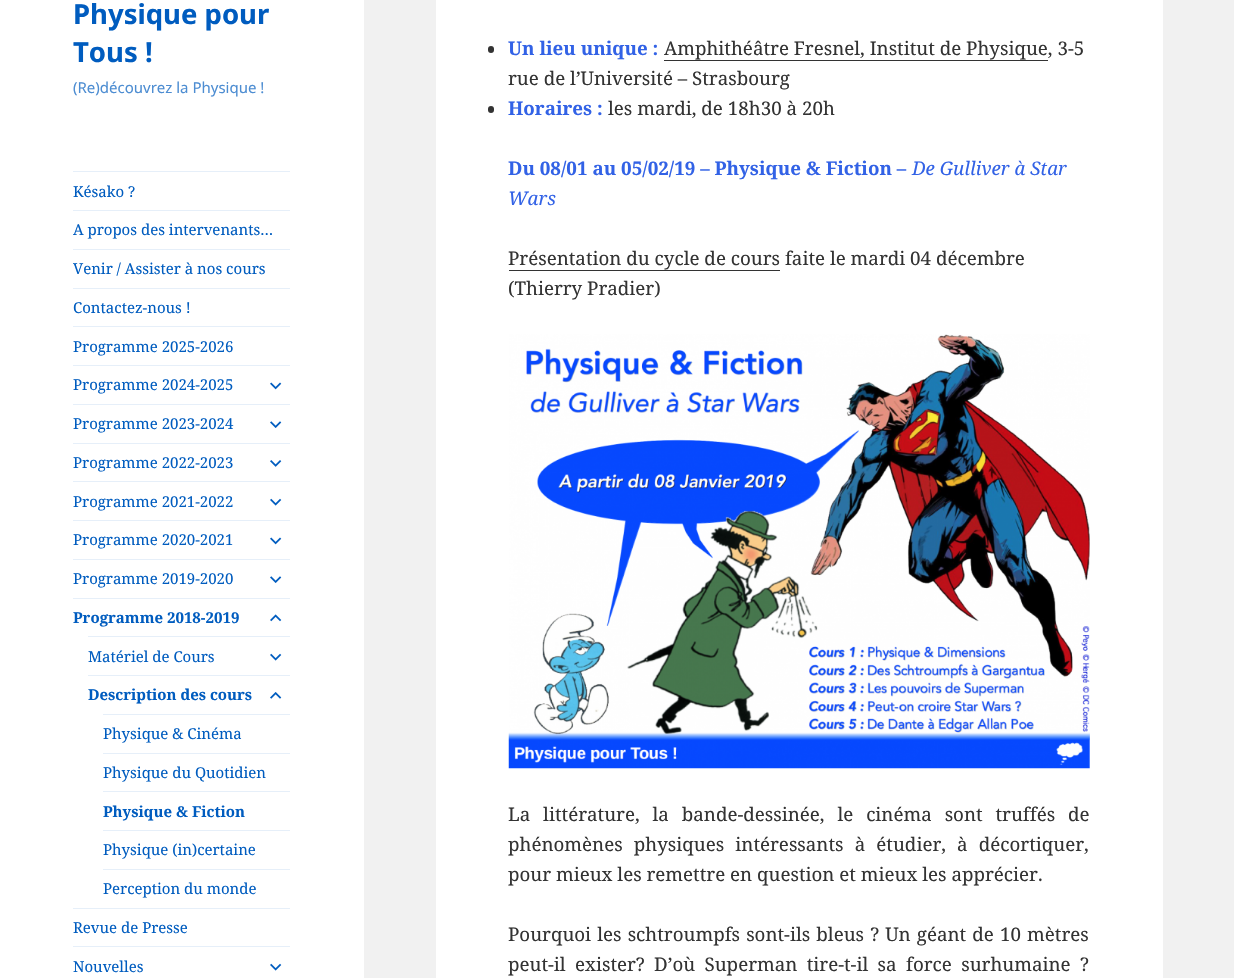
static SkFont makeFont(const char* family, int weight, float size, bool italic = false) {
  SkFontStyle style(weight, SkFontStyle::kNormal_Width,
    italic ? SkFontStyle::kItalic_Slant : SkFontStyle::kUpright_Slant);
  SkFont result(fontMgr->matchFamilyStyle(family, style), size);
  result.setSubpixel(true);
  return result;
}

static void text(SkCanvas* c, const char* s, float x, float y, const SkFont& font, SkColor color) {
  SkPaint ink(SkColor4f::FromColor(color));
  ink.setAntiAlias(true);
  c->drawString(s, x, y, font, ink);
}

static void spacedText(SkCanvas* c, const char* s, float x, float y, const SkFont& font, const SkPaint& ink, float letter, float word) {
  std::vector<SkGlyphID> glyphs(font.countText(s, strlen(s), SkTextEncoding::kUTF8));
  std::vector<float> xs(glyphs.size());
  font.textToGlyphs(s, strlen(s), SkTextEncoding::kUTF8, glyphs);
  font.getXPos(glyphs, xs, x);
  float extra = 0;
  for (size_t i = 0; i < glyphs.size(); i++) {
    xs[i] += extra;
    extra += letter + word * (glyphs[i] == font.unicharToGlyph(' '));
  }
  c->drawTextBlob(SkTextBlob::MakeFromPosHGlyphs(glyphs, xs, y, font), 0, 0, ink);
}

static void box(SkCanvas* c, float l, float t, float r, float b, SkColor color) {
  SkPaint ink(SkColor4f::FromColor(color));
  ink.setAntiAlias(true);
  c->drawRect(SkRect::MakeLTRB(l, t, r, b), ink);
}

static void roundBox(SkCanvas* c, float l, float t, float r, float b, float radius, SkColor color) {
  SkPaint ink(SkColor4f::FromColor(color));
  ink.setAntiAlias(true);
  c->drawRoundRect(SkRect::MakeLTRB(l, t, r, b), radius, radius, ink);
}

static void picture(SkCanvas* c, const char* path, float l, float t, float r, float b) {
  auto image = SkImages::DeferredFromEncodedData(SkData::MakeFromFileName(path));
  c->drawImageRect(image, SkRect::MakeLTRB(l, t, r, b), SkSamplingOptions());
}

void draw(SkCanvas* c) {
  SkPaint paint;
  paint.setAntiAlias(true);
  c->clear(0xfff1f1f1);
  box(c, 0, 0, 364, 978, 0xffffffff);
  SkFont face1 = makeFont("Noto Sans", 700, 27.5f);
  text(c, "Physique pour", 73, 24, face1, 0xff005cbf);
  text(c, "Tous !", 73, 62, face1, 0xff005cbf);
  SkFont face2 = makeFont("Noto Sans", 400, 15);
  text(c, "(Re)découvrez la Physique !", 73, 93, face2, 0xff4d8dd2);
  box(c, 73, 171, 290, 172, 0xffe6eff9);
  SkFont face3 = makeFont("Noto Serif", 400, 15);
  text(c, "Késako ?", 73, 197, face3, 0xff005cbf);
  box(c, 73, 210, 290, 211, 0xffe6eff9);
  text(c, "A propos des intervenants…", 73, 235, face3, 0xff005cbf);
  box(c, 73, 249, 290, 250, 0xffe6eff9);
  text(c, "Venir / Assister à nos cours", 73, 274, face3, 0xff005cbf);
  box(c, 73, 288, 290, 289, 0xffe6eff9);
  text(c, "Contactez-nous !", 73, 313, face3, 0xff005cbf);
  box(c, 73, 326, 290, 327, 0xffe6eff9);
  text(c, "Programme 2025-2026", 73, 352, face3, 0xff005cbf);
  box(c, 73, 365, 290, 366, 0xffe6eff9);
  text(c, "Programme 2024-2025", 73, 390, face3, 0xff005cbf);
  picture(c, "img_01.png", 270, 382, 282, 390);
  box(c, 73, 404, 290, 405, 0xffe6eff9);
  text(c, "Programme 2023-2024", 73, 429, face3, 0xff005cbf);
  picture(c, "img_02.png", 270, 421, 282, 428);
  box(c, 73, 443, 290, 444, 0xffe6eff9);
  text(c, "Programme 2022-2023", 73, 468, face3, 0xff005cbf);
  picture(c, "img_03.png", 270, 460, 282, 467);
  box(c, 73, 481, 290, 482, 0xffe6eff9);
  text(c, "Programme 2021-2022", 73, 507, face3, 0xff005cbf);
  picture(c, "img_04.png", 270, 498, 282, 506);
  box(c, 73, 520, 290, 521, 0xffe6eff9);
  text(c, "Programme 2020-2021", 73, 545, face3, 0xff005cbf);
  picture(c, "img_01.png", 270, 537, 282, 545);
  box(c, 73, 559, 290, 560, 0xffe6eff9);
  text(c, "Programme 2019-2020", 73, 584, face3, 0xff005cbf);
  picture(c, "img_02.png", 270, 576, 282, 583);
  box(c, 73, 598, 290, 599, 0xffe6eff9);
  SkFont face4 = makeFont("Noto Serif", 700, 15);
  text(c, "Programme 2018-2019", 73, 623, face4, 0xff005cbf);
  picture(c, "img_05.png", 270, 614, 282, 622);
  box(c, 88, 636, 290, 637, 0xffe6eff9);
  text(c, "Matériel de Cours", 88, 662, face3, 0xff005cbf);
  picture(c, "img_04.png", 270, 653, 282, 661);
  box(c, 88, 675, 290, 676, 0xffe6eff9);
  text(c, "Description des cours", 88, 700, face4, 0xff005cbf);
  picture(c, "img_06.png", 270, 692, 282, 699);
  box(c, 103, 714, 290, 715, 0xffe6eff9);
  text(c, "Physique & Cinéma", 103, 739, face3, 0xff005cbf);
  box(c, 103, 753, 290, 754, 0xffe6eff9);
  text(c, "Physique du Quotidien", 103, 778, face3, 0xff005cbf);
  box(c, 103, 791, 290, 792, 0xffe6eff9);
  text(c, "Physique & Fiction", 103, 817, face4, 0xff005cbf);
  box(c, 103, 830, 290, 831, 0xffe6eff9);
  text(c, "Physique (in)certaine", 103, 855, face3, 0xff005cbf);
  box(c, 103, 869, 290, 870, 0xffe6eff9);
  text(c, "Perception du monde", 103, 894, face3, 0xff005cbf);
  box(c, 73, 908, 290, 909, 0xffe6eff9);
  text(c, "Revue de Presse", 73, 933, face3, 0xff005cbf);
  box(c, 73, 946, 290, 947, 0xffe6eff9);
  text(c, "Nouvelles", 73, 972, face3, 0xff005cbf);
  picture(c, "img_04.png", 270, 963, 282, 971);
  box(c, 436, 0, 1163, 978, 0xffffffff);
  roundBox(c, 488, 46, 494, 53, 3, 0xff333333);
  SkFont face5 = makeFont("Noto Serif", 700, 18.75f);
  text(c, "Un lieu unique :", 508, 55, face5, 0xff3262e6);
  SkFont face6 = makeFont("Noto Serif", 400, 18.75f);
  text(c, "Amphithéâtre Fresnel, Institut de Physique, 3-5", 664, 55, face6, 0xff333333);
  box(c, 664, 60, 1048, 61, 0xff333333);
  text(c, "rue de l’Université – Strasbourg", 508, 85, face6, 0xff333333);
  roundBox(c, 488, 106, 494, 113, 3, 0xff333333);
  text(c, "Horaires :", 508, 115, face5, 0xff3262e6);
  text(c, "les mardi, de 18h30 à 20h", 608, 115, face6, 0xff333333);
  text(c, "Du 08/01 au 05/02/19 – Physique & Fiction –", 508, 175, face5, 0xff3262e6);
  SkFont face7 = makeFont("Noto Serif", 400, 18.75f, true);
  text(c, "De Gulliver à Star", 912, 175, face7, 0xff3262e6);
  text(c, "Wars", 508, 205, face7, 0xff3262e6);
  text(c, "Présentation du cycle de cours faite le mardi 04 décembre", 508, 265, face6, 0xff333333);
  box(c, 509, 270, 780, 271, 0xff333333);
  text(c, "(Thierry Pradier)", 508, 295, face6, 0xff333333);
  picture(c, "img_07.png", 508, 334, 1090, 769);
  paint.setColor(0xff333333);
  spacedText(c, "La littérature, la bande-dessinée, le cinéma sont truffés de", 508, 821, face6, paint, 0, 8);
  spacedText(c, "phénomènes physiques intéressants à étudier, à décortiquer,", 508, 851, face6, paint, 0, 6.25f);
  text(c, "pour mieux les remettre en question et mieux les apprécier.", 508, 881, face6, 0xff333333);
  spacedText(c, "Pourquoi les schtroumpfs sont-ils bleus ? Un géant de 10 mètres", 508, 941, face6, paint, 0, 1.25f);
  spacedText(c, "peut-il exister? D’où Superman tire-t-il sa force surhumaine ?", 508, 971, face6, paint, 0, 4.5f);
}
